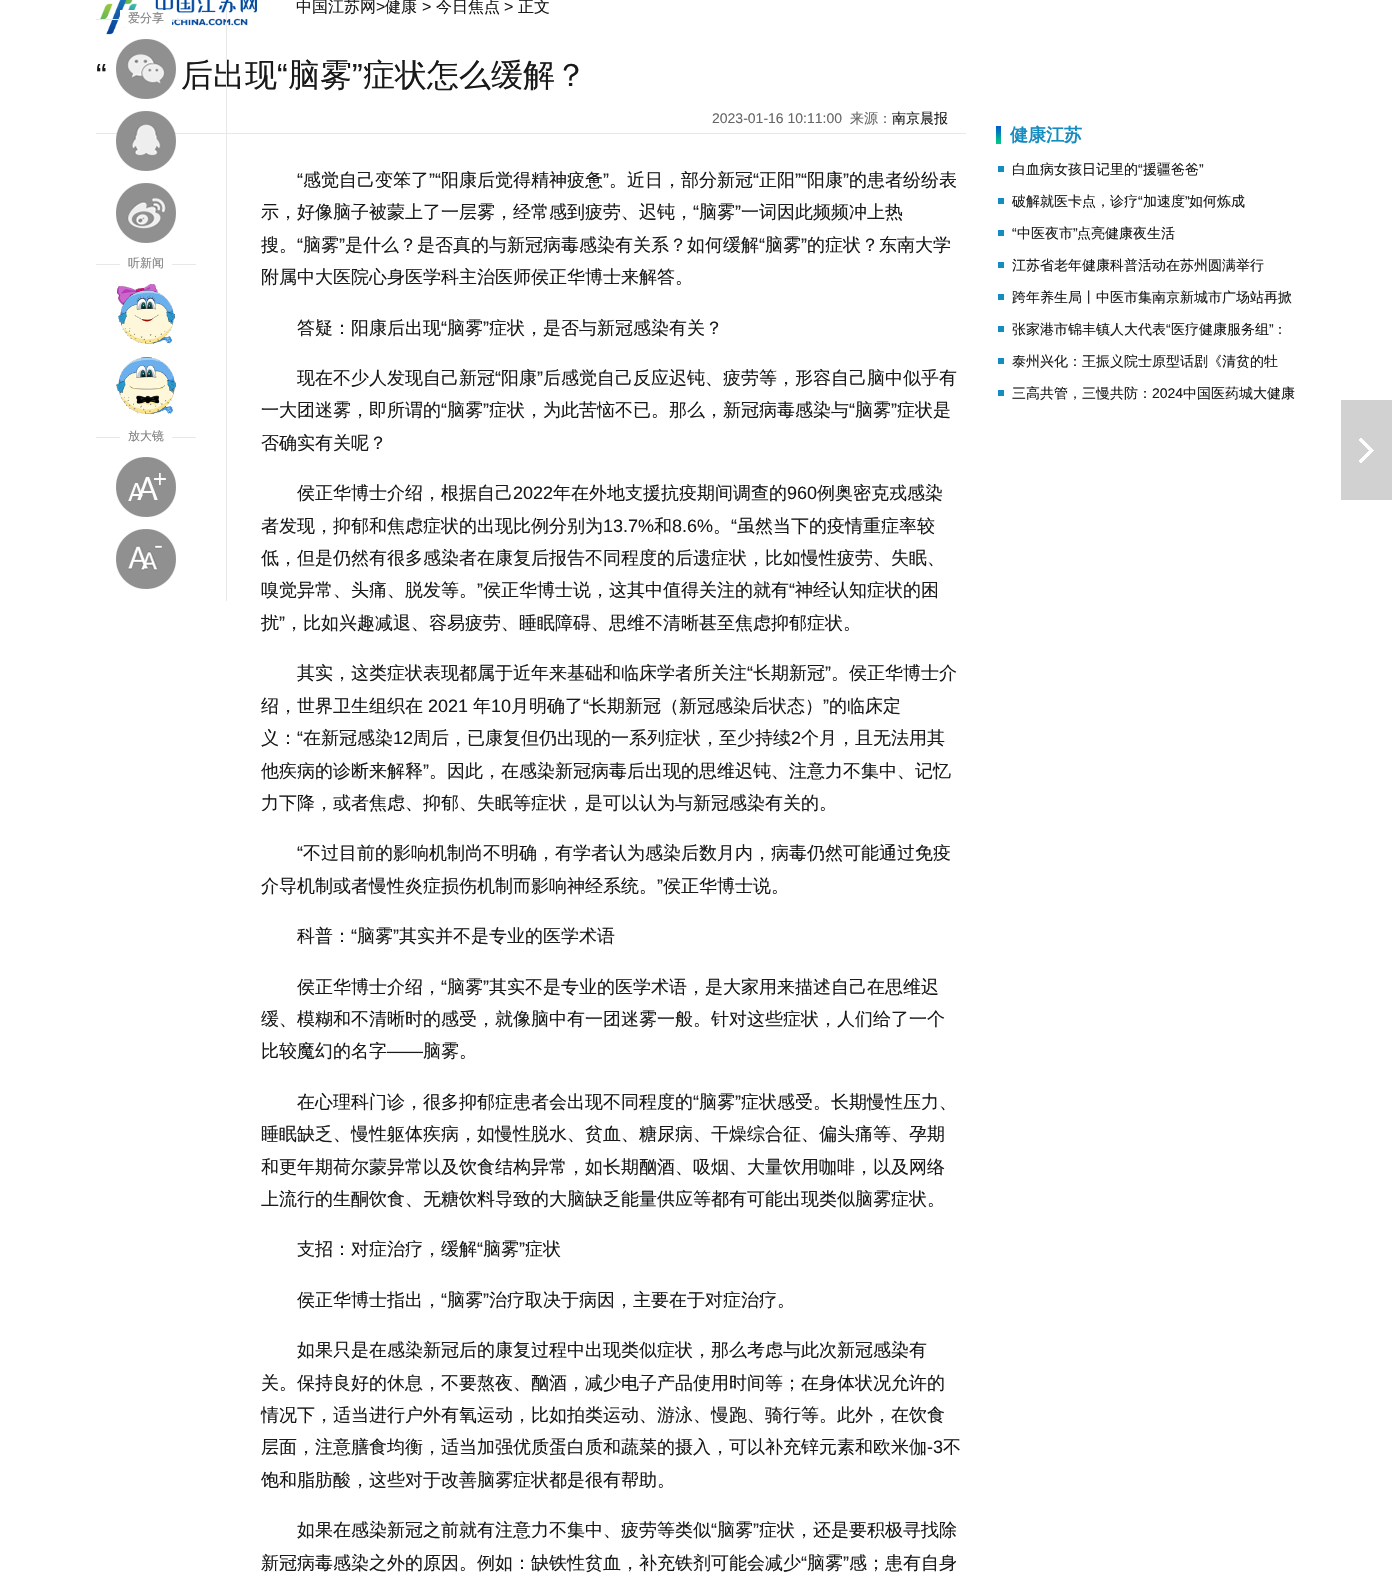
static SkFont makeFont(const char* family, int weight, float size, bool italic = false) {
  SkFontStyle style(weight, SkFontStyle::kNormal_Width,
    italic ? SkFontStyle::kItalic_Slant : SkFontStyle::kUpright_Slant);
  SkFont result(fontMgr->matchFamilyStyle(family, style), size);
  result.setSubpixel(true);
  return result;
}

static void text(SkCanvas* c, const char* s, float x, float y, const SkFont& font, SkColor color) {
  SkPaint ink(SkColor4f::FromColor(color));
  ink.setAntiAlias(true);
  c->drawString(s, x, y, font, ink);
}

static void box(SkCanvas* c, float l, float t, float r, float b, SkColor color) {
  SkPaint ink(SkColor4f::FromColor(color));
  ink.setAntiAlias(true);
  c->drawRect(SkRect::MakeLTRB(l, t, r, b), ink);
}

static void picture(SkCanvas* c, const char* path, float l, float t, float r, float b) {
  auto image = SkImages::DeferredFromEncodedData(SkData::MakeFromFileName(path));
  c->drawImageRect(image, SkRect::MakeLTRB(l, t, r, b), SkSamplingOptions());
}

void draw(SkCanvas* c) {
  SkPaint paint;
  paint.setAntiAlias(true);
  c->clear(0xffffffff);
  picture(c, "img_01.png", 100, 0, 257, 35);
  SkFont face1 = makeFont("WenQuanYi Zen Hei", 500, 16);
  text(c, "中国江苏网", 296, 12, face1, 0xff191919);
  SkFont face2 = makeFont("Liberation Sans", 400, 16);
  text(c, ">", 376, 12, face2, 0xff191919);
  text(c, "健康", 385, 12, face1, 0xff191919);
  text(c, ">", 422, 12, face2, 0xff191919);
  text(c, "今日焦点", 436, 12, face1, 0xff191919);
  text(c, ">", 504, 12, face2, 0xff191919);
  text(c, "正文", 518, 12, face1, 0xff191919);
  SkFont face3 = makeFont("WenQuanYi Zen Hei", 500, 32);
  text(c, "后出现", 181, 86, face3, 0xff191919);
  box(c, 96, 133, 966, 134, 0xffe8e8e8);
  box(c, 226, 10, 227, 601, 0xffe8e8e8);
  box(c, 96, 19, 196, 20, 0xffe8e8e8);
  box(c, 120, 10, 172, 27, 0xffffffff);
  SkFont face4 = makeFont("WenQuanYi Zen Hei", 500, 12);
  text(c, "爱分享", 128, 22, face4, 0xff808080);
  picture(c, "img_02.png", 116, 39, 176, 99);
  picture(c, "img_03.png", 116, 111, 176, 171);
  picture(c, "img_04.png", 116, 183, 176, 243);
  box(c, 96, 264, 196, 265, 0xffe8e8e8);
  box(c, 120, 264, 172, 265, 0xffffffff);
  text(c, "听新闻", 128, 267, face4, 0xff808080);
  picture(c, "img_05.png", 117, 284, 175, 344);
  picture(c, "img_06.png", 116, 357, 176, 414);
  box(c, 96, 437, 196, 438, 0xffe8e8e8);
  box(c, 120, 437, 172, 438, 0xffffffff);
  text(c, "放大镜", 128, 440, face4, 0xff808080);
  picture(c, "img_07.png", 116, 457, 176, 517);
  picture(c, "img_08.png", 116, 529, 176, 589);
  SkFont face5 = makeFont("Liberation Sans", 400, 32);
  text(c, "“", 96, 86, face5, 0xff191919);
  text(c, "“", 277, 86, face5, 0xff191919);
  text(c, "脑雾", 288, 86, face3, 0xff191919);
  text(c, "”", 352, 86, face5, 0xff191919);
  text(c, "症状怎么缓解？", 363, 86, face3, 0xff191919);
  SkFont face6 = makeFont("Liberation Sans", 400, 14);
  text(c, "2023-01-16 10:11:00", 712, 123, face6, 0xff666666);
  SkFont face7 = makeFont("WenQuanYi Zen Hei", 500, 14);
  text(c, "来源：", 850, 123, face7, 0xff666666);
  text(c, "南京晨报", 892, 123, face7, 0xff191919);
  SkFont face8 = makeFont("Liberation Sans", 400, 18);
  text(c, "“", 297, 186, face8, 0xff191919);
  SkFont face9 = makeFont("WenQuanYi Zen Hei", 500, 18);
  text(c, "感觉自己变笨了", 303, 186, face9, 0xff191919);
  text(c, "”“", 429, 186, face8, 0xff191919);
  text(c, "阳康后觉得精神疲惫", 441, 186, face9, 0xff191919);
  text(c, "”", 603, 186, face8, 0xff191919);
  text(c, "。近日，部分新冠", 609, 186, face9, 0xff191919);
  text(c, "“", 753, 186, face8, 0xff191919);
  text(c, "正阳", 759, 186, face9, 0xff191919);
  text(c, "”“", 795, 186, face8, 0xff191919);
  text(c, "阳康", 807, 186, face9, 0xff191919);
  text(c, "”", 843, 186, face8, 0xff191919);
  text(c, "的患者纷纷表", 849, 186, face9, 0xff191919);
  text(c, "示，好像脑子被蒙上了一层雾，经常感到疲劳、迟钝，", 261, 218, face9, 0xff191919);
  text(c, "“", 693, 218, face8, 0xff191919);
  text(c, "脑雾", 699, 218, face9, 0xff191919);
  text(c, "”", 735, 218, face8, 0xff191919);
  text(c, "一词因此频频冲上热", 741, 218, face9, 0xff191919);
  text(c, "搜。", 261, 251, face9, 0xff191919);
  text(c, "“", 297, 251, face8, 0xff191919);
  text(c, "脑雾", 303, 251, face9, 0xff191919);
  text(c, "”", 339, 251, face8, 0xff191919);
  text(c, "是什么？是否真的与新冠病毒感染有关系？如何缓解", 345, 251, face9, 0xff191919);
  text(c, "“", 759, 251, face8, 0xff191919);
  text(c, "脑雾", 765, 251, face9, 0xff191919);
  text(c, "”", 801, 251, face8, 0xff191919);
  text(c, "的症状？东南大学", 807, 251, face9, 0xff191919);
  text(c, "附属中大医院心身医学科主治医师侯正华博士来解答。", 261, 283, face9, 0xff191919);
  text(c, "答疑：阳康后出现", 297, 334, face9, 0xff191919);
  text(c, "“", 441, 334, face8, 0xff191919);
  text(c, "脑雾", 447, 334, face9, 0xff191919);
  text(c, "”", 483, 334, face8, 0xff191919);
  text(c, "症状，是否与新冠感染有关？", 489, 334, face9, 0xff191919);
  text(c, "现在不少人发现自己新冠", 297, 384, face9, 0xff191919);
  text(c, "“", 495, 384, face8, 0xff191919);
  text(c, "阳康", 501, 384, face9, 0xff191919);
  text(c, "”", 537, 384, face8, 0xff191919);
  text(c, "后感觉自己反应迟钝、疲劳等，形容自己脑中似乎有", 543, 384, face9, 0xff191919);
  text(c, "一大团迷雾，即所谓的", 261, 416, face9, 0xff191919);
  text(c, "“", 441, 416, face8, 0xff191919);
  text(c, "脑雾", 447, 416, face9, 0xff191919);
  text(c, "”", 483, 416, face8, 0xff191919);
  text(c, "症状，为此苦恼不已。那么，新冠病毒感染与", 489, 416, face9, 0xff191919);
  text(c, "“", 849, 416, face8, 0xff191919);
  text(c, "脑雾", 855, 416, face9, 0xff191919);
  text(c, "”", 891, 416, face8, 0xff191919);
  text(c, "症状是", 897, 416, face9, 0xff191919);
  text(c, "否确实有关呢？", 261, 449, face9, 0xff191919);
  text(c, "侯正华博士介绍，根据自己", 297, 499, face9, 0xff191919);
  text(c, "2022", 513, 499, face8, 0xff191919);
  text(c, "年在外地支援抗疫期间调查的", 553, 499, face9, 0xff191919);
  text(c, "960", 787, 499, face8, 0xff191919);
  text(c, "例奥密克戎感染", 817, 499, face9, 0xff191919);
  text(c, "者发现，抑郁和焦虑症状的出现比例分别为", 261, 532, face9, 0xff191919);
  text(c, "13.7%", 603, 532, face8, 0xff191919);
  text(c, "和", 654, 532, face9, 0xff191919);
  text(c, "8.6%", 672, 532, face8, 0xff191919);
  text(c, "“", 731, 532, face8, 0xff191919);
  text(c, "虽然当下的疫情重症率较", 737, 532, face9, 0xff191919);
  text(c, "。", 713, 532, face9, 0xff191919);
  text(c, "低，但是仍然有很多感染者在康复后报告不同程度的后遗症状，比如慢性疲劳、失眠、", 261, 564, face9, 0xff191919);
  text(c, "嗅觉异常、头痛、脱发等。", 261, 596, face9, 0xff191919);
  text(c, "”", 477, 596, face8, 0xff191919);
  text(c, "侯正华博士说，这其中值得关注的就有", 483, 596, face9, 0xff191919);
  text(c, "“", 789, 596, face8, 0xff191919);
  text(c, "神经认知症状的困", 795, 596, face9, 0xff191919);
  text(c, "扰", 261, 629, face9, 0xff191919);
  text(c, "”", 279, 629, face8, 0xff191919);
  text(c, "，比如兴趣减退、容易疲劳、睡眠障碍、思维不清晰甚至焦虑抑郁症状。", 285, 629, face9, 0xff191919);
  text(c, "其实，这类症状表现都属于近年来基础和临床学者所关注", 297, 679, face9, 0xff191919);
  text(c, "“", 747, 679, face8, 0xff191919);
  text(c, "长期新冠", 753, 679, face9, 0xff191919);
  text(c, "”", 825, 679, face8, 0xff191919);
  text(c, "。侯正华博士介", 831, 679, face9, 0xff191919);
  text(c, "绍，世界卫生组织在", 261, 712, face9, 0xff191919);
  text(c, "2021", 428, 712, face8, 0xff191919);
  text(c, "年", 473, 712, face9, 0xff191919);
  text(c, "10", 491, 712, face8, 0xff191919);
  text(c, "月明确了", 511, 712, face9, 0xff191919);
  text(c, "“", 583, 712, face8, 0xff191919);
  text(c, "长期新冠（新冠感染后状态）", 589, 712, face9, 0xff191919);
  text(c, "”", 823, 712, face8, 0xff191919);
  text(c, "的临床定", 829, 712, face9, 0xff191919);
  text(c, "义：", 261, 744, face9, 0xff191919);
  text(c, "“", 297, 744, face8, 0xff191919);
  text(c, "在新冠感染", 303, 744, face9, 0xff191919);
  text(c, "12", 393, 744, face8, 0xff191919);
  text(c, "周后，已康复但仍出现的一系列症状，至少持续", 413, 744, face9, 0xff191919);
  text(c, "2", 791, 744, face8, 0xff191919);
  text(c, "个月，且无法用其", 801, 744, face9, 0xff191919);
  text(c, "他疾病的诊断来解释", 261, 777, face9, 0xff191919);
  text(c, "”", 423, 777, face8, 0xff191919);
  text(c, "。因此，在感染新冠病毒后出现的思维迟钝、注意力不集中、记忆", 429, 777, face9, 0xff191919);
  text(c, "力下降，或者焦虑、抑郁、失眠等症状，是可以认为与新冠感染有关的。", 261, 809, face9, 0xff191919);
  text(c, "“", 297, 859, face8, 0xff191919);
  text(c, "不过目前的影响机制尚不明确，有学者认为感染后数月内，病毒仍然可能通过免疫", 303, 859, face9, 0xff191919);
  text(c, "介导机制或者慢性炎症损伤机制而影响神经系统。", 261, 892, face9, 0xff191919);
  text(c, "”", 657, 892, face8, 0xff191919);
  text(c, "侯正华博士说。", 663, 892, face9, 0xff191919);
  text(c, "科普：", 297, 942, face9, 0xff191919);
  text(c, "“", 351, 942, face8, 0xff191919);
  text(c, "脑雾", 357, 942, face9, 0xff191919);
  text(c, "”", 393, 942, face8, 0xff191919);
  text(c, "其实并不是专业的医学术语", 399, 942, face9, 0xff191919);
  text(c, "侯正华博士介绍，", 297, 993, face9, 0xff191919);
  text(c, "“", 441, 993, face8, 0xff191919);
  text(c, "脑雾", 447, 993, face9, 0xff191919);
  text(c, "”", 483, 993, face8, 0xff191919);
  text(c, "其实不是专业的医学术语，是大家用来描述自己在思维迟", 489, 993, face9, 0xff191919);
  text(c, "缓、模糊和不清晰时的感受，就像脑中有一团迷雾一般。针对这些症状，人们给了一个", 261, 1025, face9, 0xff191919);
  text(c, "比较魔幻的名字", 261, 1057, face9, 0xff191919);
  text(c, "——", 387, 1057, face8, 0xff191919);
  text(c, "脑雾。", 423, 1057, face9, 0xff191919);
  text(c, "在心理科门诊，很多抑郁症患者会出现不同程度的", 297, 1108, face9, 0xff191919);
  text(c, "“", 693, 1108, face8, 0xff191919);
  text(c, "脑雾", 699, 1108, face9, 0xff191919);
  text(c, "”", 735, 1108, face8, 0xff191919);
  text(c, "症状感受。长期慢性压力、", 741, 1108, face9, 0xff191919);
  text(c, "睡眠缺乏、慢性躯体疾病，如慢性脱水、贫血、糖尿病、干燥综合征、偏头痛等、孕期", 261, 1140, face9, 0xff191919);
  text(c, "和更年期荷尔蒙异常以及饮食结构异常，如长期酗酒、吸烟、大量饮用咖啡，以及网络", 261, 1173, face9, 0xff191919);
  text(c, "上流行的生酮饮食、无糖饮料导致的大脑缺乏能量供应等都有可能出现类似脑雾症状。", 261, 1205, face9, 0xff191919);
  text(c, "支招：对症治疗，缓解", 297, 1255, face9, 0xff191919);
  text(c, "“", 477, 1255, face8, 0xff191919);
  text(c, "脑雾", 483, 1255, face9, 0xff191919);
  text(c, "”", 519, 1255, face8, 0xff191919);
  text(c, "症状", 525, 1255, face9, 0xff191919);
  text(c, "侯正华博士指出，", 297, 1306, face9, 0xff191919);
  text(c, "“", 441, 1306, face8, 0xff191919);
  text(c, "脑雾", 447, 1306, face9, 0xff191919);
  text(c, "”", 483, 1306, face8, 0xff191919);
  text(c, "治疗取决于病因，主要在于对症治疗。", 489, 1306, face9, 0xff191919);
  text(c, "如果只是在感染新冠后的康复过程中出现类似症状，那么考虑与此次新冠感染有", 297, 1356, face9, 0xff191919);
  text(c, "关。保持良好的休息，不要熬夜、酗酒，减少电子产品使用时间等；在身体状况允许的", 261, 1389, face9, 0xff191919);
  text(c, "情况下，适当进行户外有氧运动，比如拍类运动、游泳、慢跑、骑行等。此外，在饮食", 261, 1421, face9, 0xff191919);
  text(c, "层面，注意膳食均衡，适当加强优质蛋白质和蔬菜的摄入，可以补充锌元素和欧米伽", 261, 1453, face9, 0xff191919);
  text(c, "-3", 927, 1453, face8, 0xff191919);
  text(c, "不", 943, 1453, face9, 0xff191919);
  text(c, "饱和脂肪酸，这些对于改善脑雾症状都是很有帮助。", 261, 1486, face9, 0xff191919);
  text(c, "如果在感染新冠之前就有注意力不集中、疲劳等类似", 297, 1536, face9, 0xff191919);
  text(c, "“", 711, 1536, face8, 0xff191919);
  text(c, "脑雾", 717, 1536, face9, 0xff191919);
  text(c, "”", 753, 1536, face8, 0xff191919);
  text(c, "症状，还是要积极寻找除", 759, 1536, face9, 0xff191919);
  text(c, "新冠病毒感染之外的原因。例如：缺铁性贫血，补充铁剂可能会减少", 261, 1569, face9, 0xff191919);
  text(c, "“", 801, 1569, face8, 0xff191919);
  text(c, "脑雾", 807, 1569, face9, 0xff191919);
  text(c, "”", 843, 1569, face8, 0xff191919);
  text(c, "感；患有自身", 849, 1569, face9, 0xff191919);
  picture(c, "img_09.png", 996, 126, 1001, 144);
  SkFont face10 = makeFont("WenQuanYi Zen Hei", 700, 18);
  text(c, "健康江苏", 1010, 141, face10, 0xff148cc1);
  box(c, 998, 166, 1004, 172, 0xff148cc1);
  text(c, "白血病女孩日记里的", 1012, 174, face7, 0xff191919);
  text(c, "“", 1138, 174, face6, 0xff191919);
  text(c, "援疆爸爸", 1143, 174, face7, 0xff191919);
  text(c, "”", 1199, 174, face6, 0xff191919);
  box(c, 998, 198, 1004, 204, 0xff148cc1);
  text(c, "破解就医卡点，诊疗", 1012, 206, face7, 0xff191919);
  text(c, "“", 1138, 206, face6, 0xff191919);
  text(c, "加速度", 1143, 206, face7, 0xff191919);
  text(c, "”", 1185, 206, face6, 0xff191919);
  text(c, "如何炼成", 1189, 206, face7, 0xff191919);
  box(c, 998, 230, 1004, 236, 0xff148cc1);
  text(c, "“", 1012, 238, face6, 0xff191919);
  text(c, "中医夜市", 1017, 238, face7, 0xff191919);
  text(c, "”", 1073, 238, face6, 0xff191919);
  text(c, "点亮健康夜生活", 1077, 238, face7, 0xff191919);
  box(c, 998, 262, 1004, 268, 0xff148cc1);
  text(c, "江苏省老年健康科普活动在苏州圆满举行", 1012, 270, face7, 0xff191919);
  box(c, 998, 294, 1004, 300, 0xff148cc1);
  text(c, "跨年养生局丨中医市集南京新城市广场站再掀", 1012, 302, face7, 0xff191919);
  box(c, 998, 326, 1004, 332, 0xff148cc1);
  text(c, "张家港市锦丰镇人大代表", 1012, 334, face7, 0xff191919);
  text(c, "“", 1166, 334, face6, 0xff191919);
  text(c, "医疗健康服务组", 1171, 334, face7, 0xff191919);
  text(c, "”", 1269, 334, face6, 0xff191919);
  text(c, "：", 1273, 334, face7, 0xff191919);
  box(c, 998, 358, 1004, 364, 0xff148cc1);
  text(c, "泰州兴化：王振义院士原型话剧《清贫的牡", 1012, 366, face7, 0xff191919);
  box(c, 998, 390, 1004, 396, 0xff148cc1);
  text(c, "三高共管，三慢共防：", 1012, 398, face7, 0xff191919);
  text(c, "2024", 1152, 398, face6, 0xff191919);
  text(c, "中国医药城大健康", 1183, 398, face7, 0xff191919);
  picture(c, "img_10.png", 1341, 400, 1392, 500);
}
